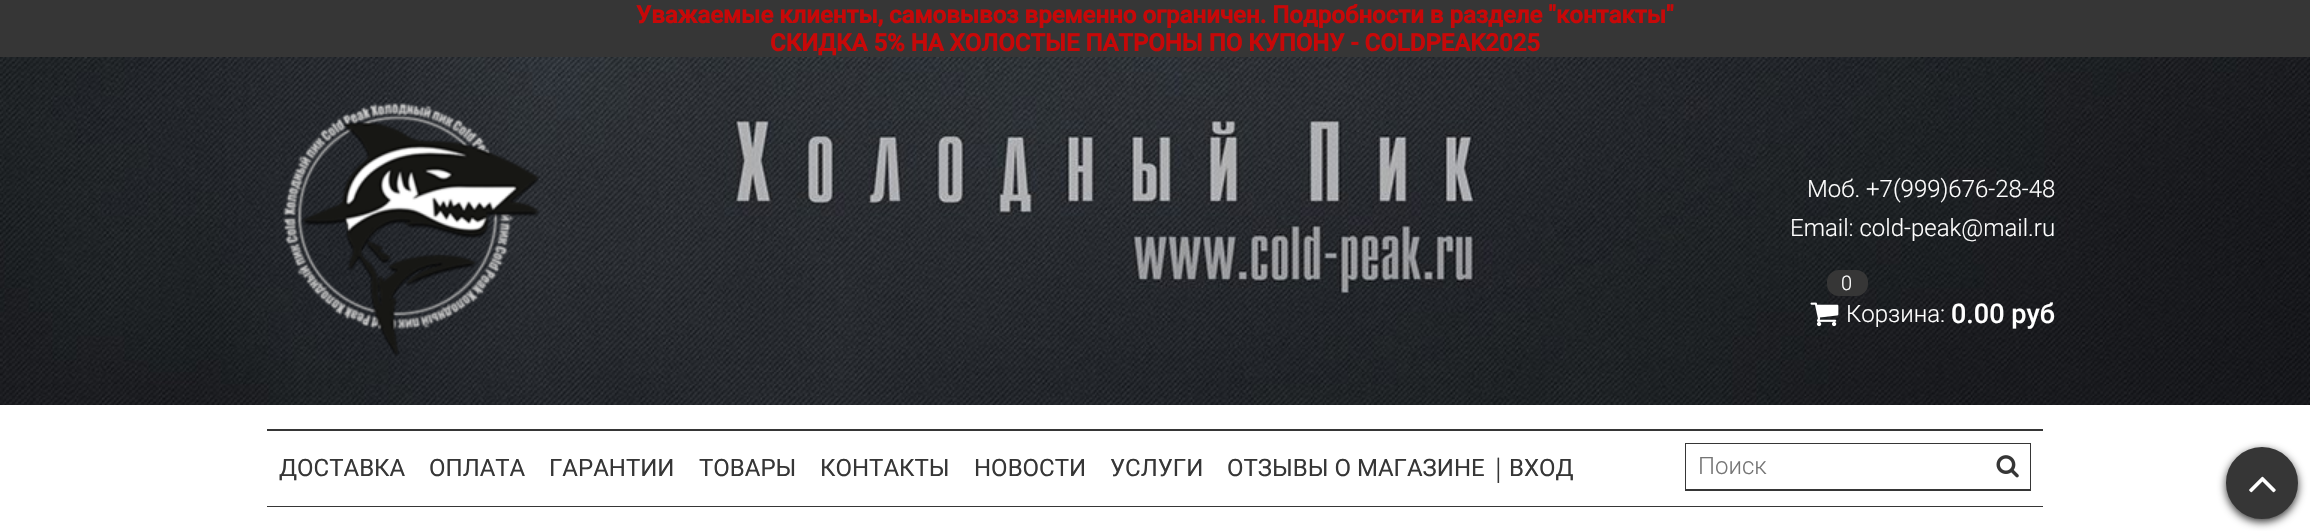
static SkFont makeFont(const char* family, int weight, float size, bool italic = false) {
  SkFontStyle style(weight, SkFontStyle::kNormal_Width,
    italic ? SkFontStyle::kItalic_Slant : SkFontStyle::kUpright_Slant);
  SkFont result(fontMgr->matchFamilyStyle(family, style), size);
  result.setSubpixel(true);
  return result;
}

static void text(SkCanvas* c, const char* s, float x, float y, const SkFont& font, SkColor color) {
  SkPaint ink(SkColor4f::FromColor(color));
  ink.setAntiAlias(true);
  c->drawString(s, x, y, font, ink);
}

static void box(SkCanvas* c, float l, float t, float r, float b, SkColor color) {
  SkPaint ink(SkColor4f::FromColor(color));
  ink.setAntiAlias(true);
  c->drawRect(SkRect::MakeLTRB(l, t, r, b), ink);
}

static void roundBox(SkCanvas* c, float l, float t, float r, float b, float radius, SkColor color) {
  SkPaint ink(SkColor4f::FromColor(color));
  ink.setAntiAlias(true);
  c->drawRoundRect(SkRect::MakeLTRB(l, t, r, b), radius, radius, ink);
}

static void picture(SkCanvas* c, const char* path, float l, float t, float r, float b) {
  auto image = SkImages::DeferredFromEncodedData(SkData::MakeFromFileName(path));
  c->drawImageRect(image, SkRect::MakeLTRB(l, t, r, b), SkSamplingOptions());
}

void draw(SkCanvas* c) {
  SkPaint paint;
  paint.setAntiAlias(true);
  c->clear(0xffffffff);
  box(c, 0, 0, 2310, 57, 0xff363636);
  SkFont face1 = makeFont("Roboto", 700, 24);
  text(c, "Уважаемые клиенты, самовывоз временно ограничен. Подробности в разделе \"контакты\"", 636, 23, face1, 0xffc70808);
  text(c, "СКИДКА 5% НА ХОЛОСТЫЕ ПАТРОНЫ ПО КУПОНУ - COLDPEAK2025", 770, 51, face1, 0xffc70808);
  picture(c, "img_01.png", 0, 57, 2310, 405);
  picture(c, "img_02.png", 283, 103, 539, 356);
  SkFont face2 = makeFont("Roboto", 300, 24);
  text(c, "Моб. +7(999)676-28-48", 1807, 197, face2, 0xffffffff);
  text(c, "Email: cold-peak@mail.ru", 1790, 236, face2, 0xffffffff);
  roundBox(c, 1827, 270, 1868, 296, 12, 0xff363636);
  SkFont face3 = makeFont("Roboto", 300, 20);
  text(c, "0", 1841, 290, face3, 0xffffffff);
  picture(c, "img_03.png", 1810, 302, 1839, 327);
  text(c, "Корзина:", 1846, 322, face2, 0xffffffff);
  SkFont face4 = makeFont("Roboto", 500, 27);
  text(c, "0.00 руб", 1951, 323, face4, 0xffffffff);
  box(c, 267, 429, 2043, 431, 0xff363636);
  box(c, 267, 506, 2043, 507, 0xff363636);
  SkFont face5 = makeFont("Roboto", 400, 24);
  text(c, "ДОСТАВКА", 279, 476, face5, 0xff363636);
  text(c, "ОПЛАТА", 429, 476, face5, 0xff363636);
  text(c, "ГАРАНТИИ", 549, 476, face5, 0xff363636);
  text(c, "ТОВАРЫ", 699, 476, face5, 0xff363636);
  text(c, "КОНТАКТЫ", 820, 476, face5, 0xff363636);
  text(c, "НОВОСТИ", 974, 476, face5, 0xff363636);
  text(c, "УСЛУГИ", 1110, 476, face5, 0xff363636);
  text(c, "ОТЗЫВЫ О МАГАЗИНЕ", 1227, 476, face5, 0xff363636);
  SkFont face6 = makeFont("Roboto", 300, 30);
  text(c, "|", 1495, 479, face6, 0xff363636);
  text(c, "ВХОД", 1509, 476, face5, 0xff363636);
  paint.setStyle(SkPaint::kStroke_Style);
  paint.setStrokeWidth(2);
  paint.setColor(0xff363636);
  c->drawRect(SkRect::MakeLTRB(1686, 444, 2030, 490), paint);
  box(c, 1686, 444, 2030, 489, 0xffffffff);
  text(c, "Поиск", 1698, 474, face2, 0xff757575);
  picture(c, "img_04.png", 1996, 455, 2019, 478);
  paint.setStyle(SkPaint::kFill_Style);
  paint.setColor(0xff333333);
  paint.setMaskFilter(SkMaskFilter::MakeBlur(kNormal_SkBlurStyle, 4.5f));
  c->drawRoundRect(SkRect::MakeLTRB(2226, 450, 2298, 522), 36, 36, paint);
  paint.setMaskFilter(nullptr);
  paint.setColor(0xff363636);
  c->drawCircle(2262, 483, 34.5f, paint);
  paint.setStyle(SkPaint::kStroke_Style);
  paint.setStrokeWidth(3);
  c->drawCircle(2262, 483, 34.5f, paint);
  picture(c, "img_05.png", 2249, 476, 2276, 493);
}
